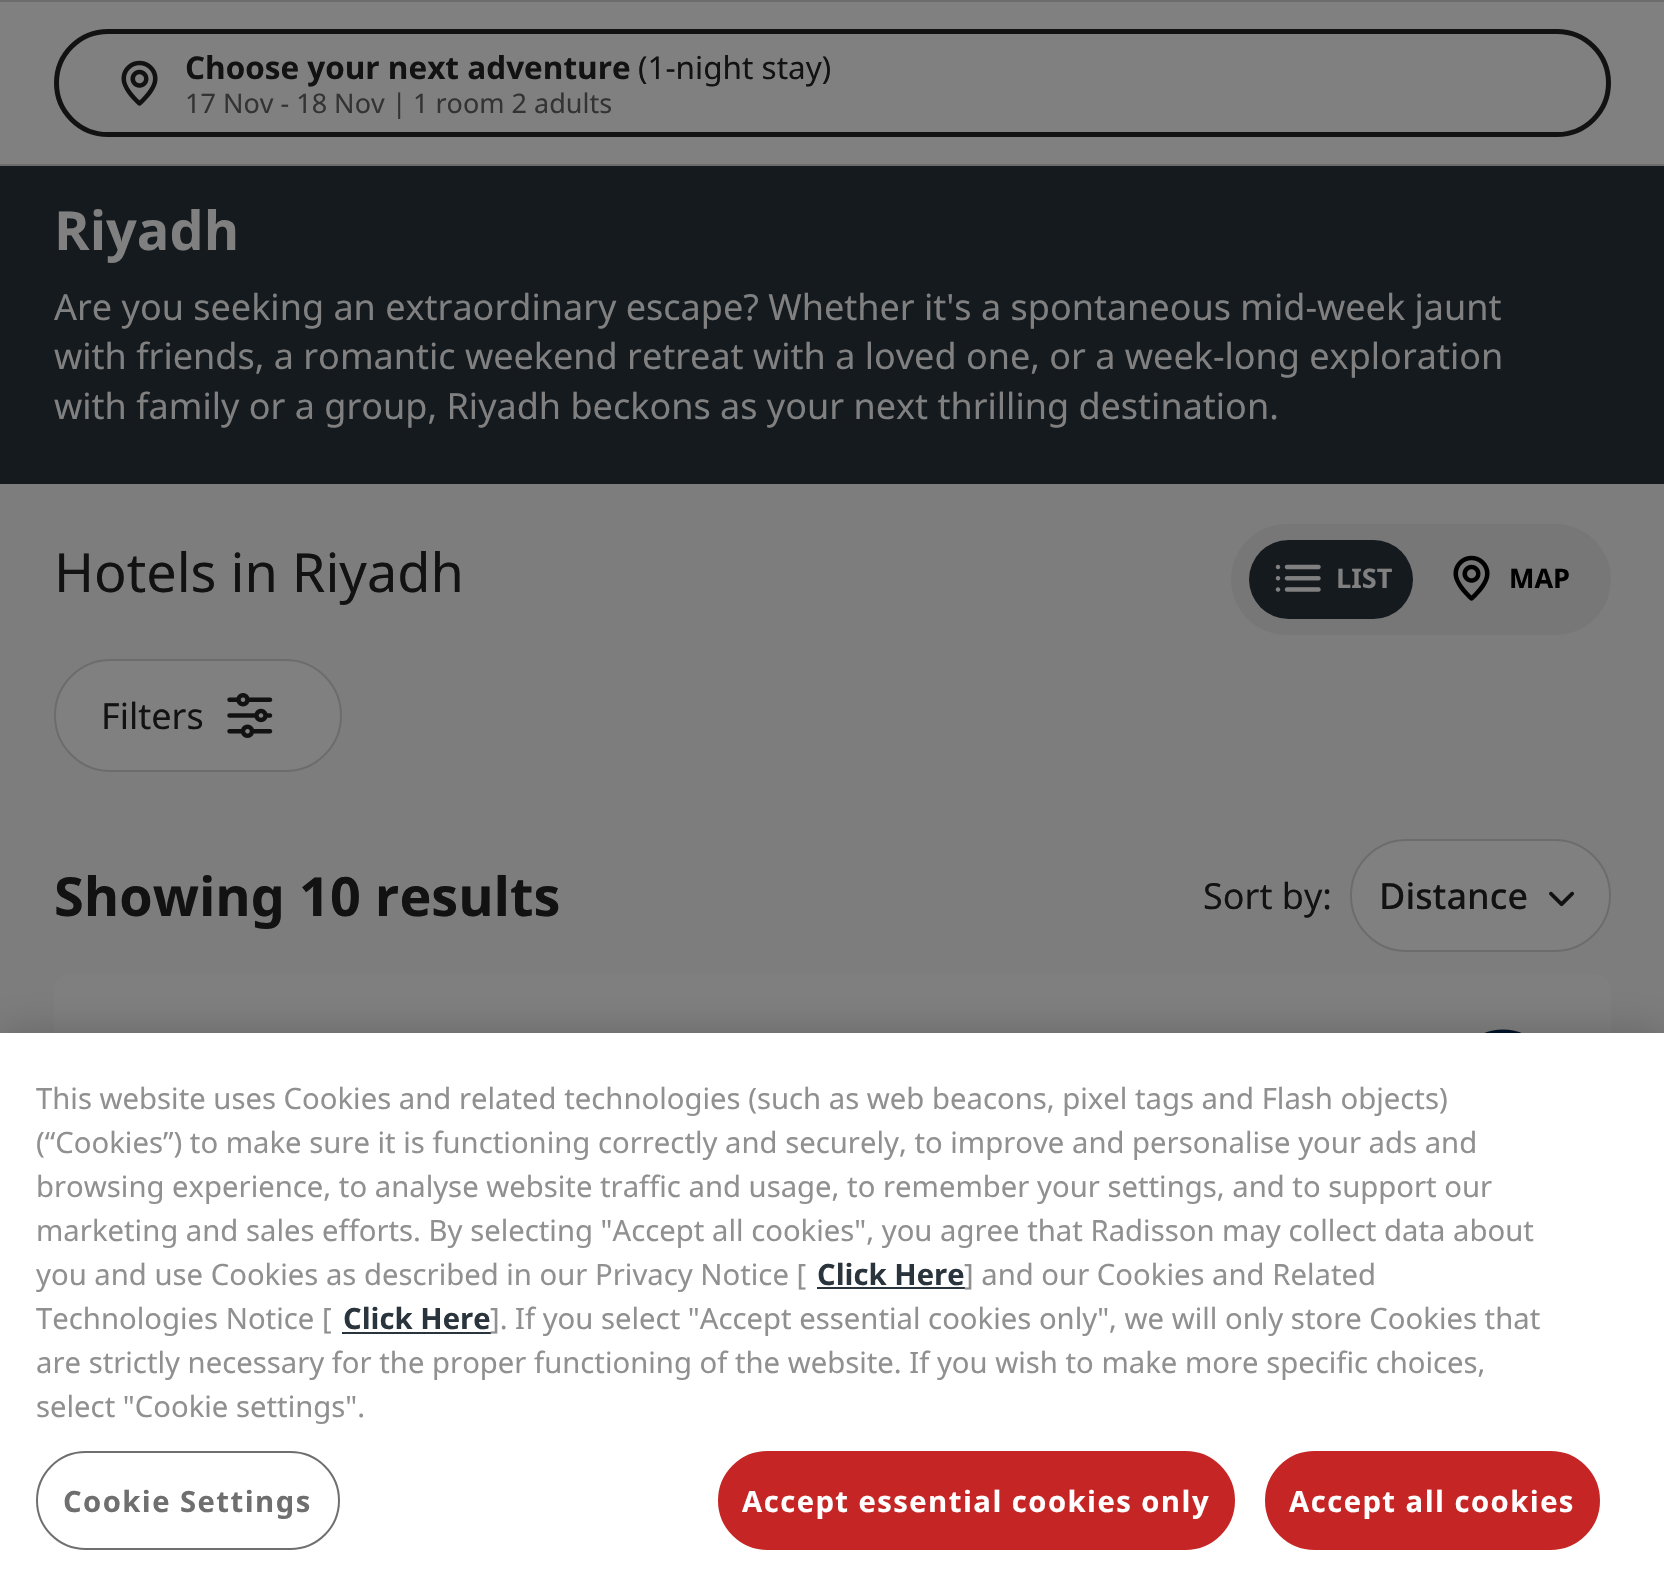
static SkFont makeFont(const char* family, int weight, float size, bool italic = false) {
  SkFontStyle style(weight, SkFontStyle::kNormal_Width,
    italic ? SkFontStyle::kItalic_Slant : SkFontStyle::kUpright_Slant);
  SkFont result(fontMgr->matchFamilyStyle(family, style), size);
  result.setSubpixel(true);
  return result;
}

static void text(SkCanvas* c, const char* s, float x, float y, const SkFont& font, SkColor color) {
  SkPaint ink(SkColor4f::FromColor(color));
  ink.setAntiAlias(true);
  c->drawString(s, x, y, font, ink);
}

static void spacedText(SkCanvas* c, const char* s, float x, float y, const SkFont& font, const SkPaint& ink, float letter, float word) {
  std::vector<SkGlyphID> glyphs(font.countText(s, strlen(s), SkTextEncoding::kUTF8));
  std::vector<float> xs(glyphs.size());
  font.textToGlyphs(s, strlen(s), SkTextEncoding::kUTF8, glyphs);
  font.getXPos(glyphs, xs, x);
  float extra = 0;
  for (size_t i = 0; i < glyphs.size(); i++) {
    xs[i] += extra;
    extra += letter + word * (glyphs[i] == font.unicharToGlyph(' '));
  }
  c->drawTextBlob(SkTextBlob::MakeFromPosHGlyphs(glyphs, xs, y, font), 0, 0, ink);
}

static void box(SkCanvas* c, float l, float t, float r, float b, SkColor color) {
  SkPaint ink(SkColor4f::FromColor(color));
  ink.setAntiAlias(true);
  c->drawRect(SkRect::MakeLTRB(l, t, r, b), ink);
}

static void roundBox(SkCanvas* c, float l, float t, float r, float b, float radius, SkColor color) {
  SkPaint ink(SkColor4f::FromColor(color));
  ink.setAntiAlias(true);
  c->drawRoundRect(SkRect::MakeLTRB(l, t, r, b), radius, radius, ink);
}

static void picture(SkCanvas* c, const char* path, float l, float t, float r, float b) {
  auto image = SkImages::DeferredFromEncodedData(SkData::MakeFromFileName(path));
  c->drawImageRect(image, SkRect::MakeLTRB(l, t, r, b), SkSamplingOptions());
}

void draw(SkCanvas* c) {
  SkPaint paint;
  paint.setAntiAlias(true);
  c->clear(0xff7d7d7d);
  box(c, 0, 2, 1664, 164, 0xff808080);
  box(c, 0, 0, 1664, 2, 0xff6c6c6c);
  box(c, 0, 164, 1664, 166, 0xff6c6c6c);
  paint.setStyle(SkPaint::kStroke_Style);
  paint.setStrokeWidth(5);
  paint.setColor(0xff121212);
  c->drawRoundRect(SkRect::MakeLTRB(56.5f, 31.5f, 1608.5f, 134.5f), 51.5f, 51.5f, paint);
  picture(c, "img_01.png", 121, 60, 158, 106);
  SkFont face1 = makeFont("Noto Sans", 700, 31.5f);
  text(c, "Choose your next adventure", 185, 79, face1, 0xff121212);
  SkFont face2 = makeFont("Noto Sans", 400, 31.5f);
  text(c, "(1-night stay)", 638, 79, face2, 0xff121212);
  c->save();
  c->clipRect(SkRect::MakeLTRB(185, 88, 833, 119));
  SkFont face3 = makeFont("Noto Sans", 400, 27);
  text(c, "17 Nov - 18 Nov |", 185, 113, face3, 0xff333333);
  c->restore();
  text(c, "1 room 2 adults", 413, 113, face3, 0xff333333);
  box(c, 0, 166, 1664, 484, 0xff151a1f);
  SkFont face4 = makeFont("Noto Sans", 700, 54);
  text(c, "Riyadh", 54, 250, face4, 0xff808080);
  SkFont face5 = makeFont("Noto Sans", 400, 36);
  text(c, "Are you seeking an extraordinary escape? Whether it's a spontaneous mid-week jaunt", 54, 320, face5, 0xff808080);
  text(c, "with friends, a romantic weekend retreat with a loved one, or a week-long exploration", 54, 369, face5, 0xff808080);
  text(c, "with family or a group, Riyadh beckons as your next thrilling destination.", 54, 419, face5, 0xff808080);
  SkFont face6 = makeFont("Noto Sans", 400, 54);
  text(c, "Hotels in Riyadh", 54, 592, face6, 0xff121212);
  roundBox(c, 1231, 524, 1611, 635, 55.5f, 0xff777778);
  roundBox(c, 1249, 540, 1413, 619, 39.5f, 0xff151a1f);
  picture(c, "img_02.png", 1275, 564, 1321, 592);
  SkFont face7 = makeFont("Noto Sans", 700, 27);
  text(c, "LIST", 1336, 588, face7, 0xff808080);
  picture(c, "img_03.png", 1453, 555, 1490, 601);
  text(c, "MAP", 1509, 588, face7, 0xff000000);
  paint.setStyle(SkPaint::kFill_Style);
  paint.setColor(0xff808080);
  c->drawRoundRect(SkRect::MakeLTRB(55, 660, 341, 771), 55.5f, 55.5f, paint);
  paint.setStyle(SkPaint::kStroke_Style);
  paint.setStrokeWidth(2);
  paint.setColor(0xff6c6c6c);
  c->drawRoundRect(SkRect::MakeLTRB(55, 660, 341, 771), 55.5f, 55.5f, paint);
  text(c, "Filters", 101, 729, face5, 0xff121212);
  picture(c, "img_04.png", 227, 693, 273, 738);
  text(c, "Showing 10 results", 54, 916, face4, 0xff121212);
  text(c, "Sort by:", 1203, 909, face5, 0xff121212);
  paint.setStyle(SkPaint::kFill_Style);
  paint.setColor(0xff808080);
  c->drawRoundRect(SkRect::MakeLTRB(1351, 840, 1610, 951), 55.5f, 55.5f, paint);
  paint.setStyle(SkPaint::kStroke_Style);
  paint.setColor(0xff6c6c6c);
  c->drawRoundRect(SkRect::MakeLTRB(1351, 840, 1610, 951), 55.5f, 55.5f, paint);
  SkFont face8 = makeFont("Noto Sans", 500, 36);
  text(c, "Distance", 1379, 909, face8, 0xff121212);
  picture(c, "img_05.png", 1549, 891, 1575, 907);
  roundBox(c, 54, 974, 1611, 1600, 18, 0xff808080);
  picture(c, "img_06.png", 1484, 1029, 1522, 1033);
  paint.setStyle(SkPaint::kFill_Style);
  paint.setColor(0x33000000);
  paint.setMaskFilter(SkMaskFilter::MakeBlur(kNormal_SkBlurStyle, 20));
  c->drawRect(SkRect::MakeLTRB(0, 1033, 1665, 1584), paint);
  paint.setMaskFilter(nullptr);
  box(c, 0, 1033, 1664, 1582, 0xffffffff);
  SkFont face9 = makeFont("Noto Sans", 400, 29.27f);
  text(c, "This website uses Cookies and related technologies (such as web beacons, pixel tags and Flash objects)", 36, 1109, face9, 0xff909090);
  text(c, "(“Cookies”) to make sure it is functioning correctly and securely, to improve and personalise your ads and", 36, 1153, face9, 0xff909090);
  text(c, "browsing experience, to analyse website traffic and usage, to remember your settings, and to support our", 36, 1197, face9, 0xff909090);
  text(c, "marketing and sales efforts. By selecting \"Accept all cookies\", you agree that Radisson may collect data about", 36, 1241, face9, 0xff909090);
  text(c, "you and use Cookies as described in our Privacy Notice [", 36, 1285, face9, 0xff909090);
  SkFont face10 = makeFont("Noto Sans", 700, 29.27f);
  text(c, "Click Here", 817, 1285, face10, 0xff29343d);
  box(c, 817, 1287, 965, 1289, 0xff29343d);
  text(c, "] and our Cookies and Related", 964, 1285, face9, 0xff909090);
  text(c, "Technologies Notice [", 36, 1329, face9, 0xff909090);
  text(c, "Click Here", 343, 1329, face10, 0xff29343d);
  box(c, 342, 1332, 491, 1334, 0xff29343d);
  text(c, "]. If you select \"Accept essential cookies only\", we will only store Cookies that", 490, 1329, face9, 0xff909090);
  text(c, "are strictly necessary for the proper functioning of the website. If you wish to make more specific choices,", 36, 1373, face9, 0xff909090);
  text(c, "select \"Cookie settings\".", 36, 1417, face9, 0xff909090);
  paint.setStyle(SkPaint::kStroke_Style);
  paint.setColor(0xff6f6f6f);
  c->drawRoundRect(SkRect::MakeLTRB(37, 1452, 339, 1549), 48.5f, 48.5f, paint);
  paint.setStyle(SkPaint::kFill_Style);
  spacedText(c, "Cookie Settings", 63, 1512, face10, paint, 1.45f, 0);
  paint.setColor(0xffc62525);
  c->drawRoundRect(SkRect::MakeLTRB(719, 1452, 1234, 1549), 48.5f, 48.5f, paint);
  paint.setStyle(SkPaint::kStroke_Style);
  c->drawRoundRect(SkRect::MakeLTRB(719, 1452, 1234, 1549), 48.5f, 48.5f, paint);
  paint.setStyle(SkPaint::kFill_Style);
  paint.setColor(0xffffffff);
  spacedText(c, "Accept essential cookies only", 742, 1512, face10, paint, 1.45f, 0);
  paint.setColor(0xffc62525);
  c->drawRoundRect(SkRect::MakeLTRB(1266, 1452, 1599, 1549), 48.5f, 48.5f, paint);
  paint.setStyle(SkPaint::kStroke_Style);
  c->drawRoundRect(SkRect::MakeLTRB(1266, 1452, 1599, 1549), 48.5f, 48.5f, paint);
  paint.setStyle(SkPaint::kFill_Style);
  paint.setColor(0xffffffff);
  spacedText(c, "Accept all cookies", 1289, 1512, face10, paint, 1.45f, 0);
}
